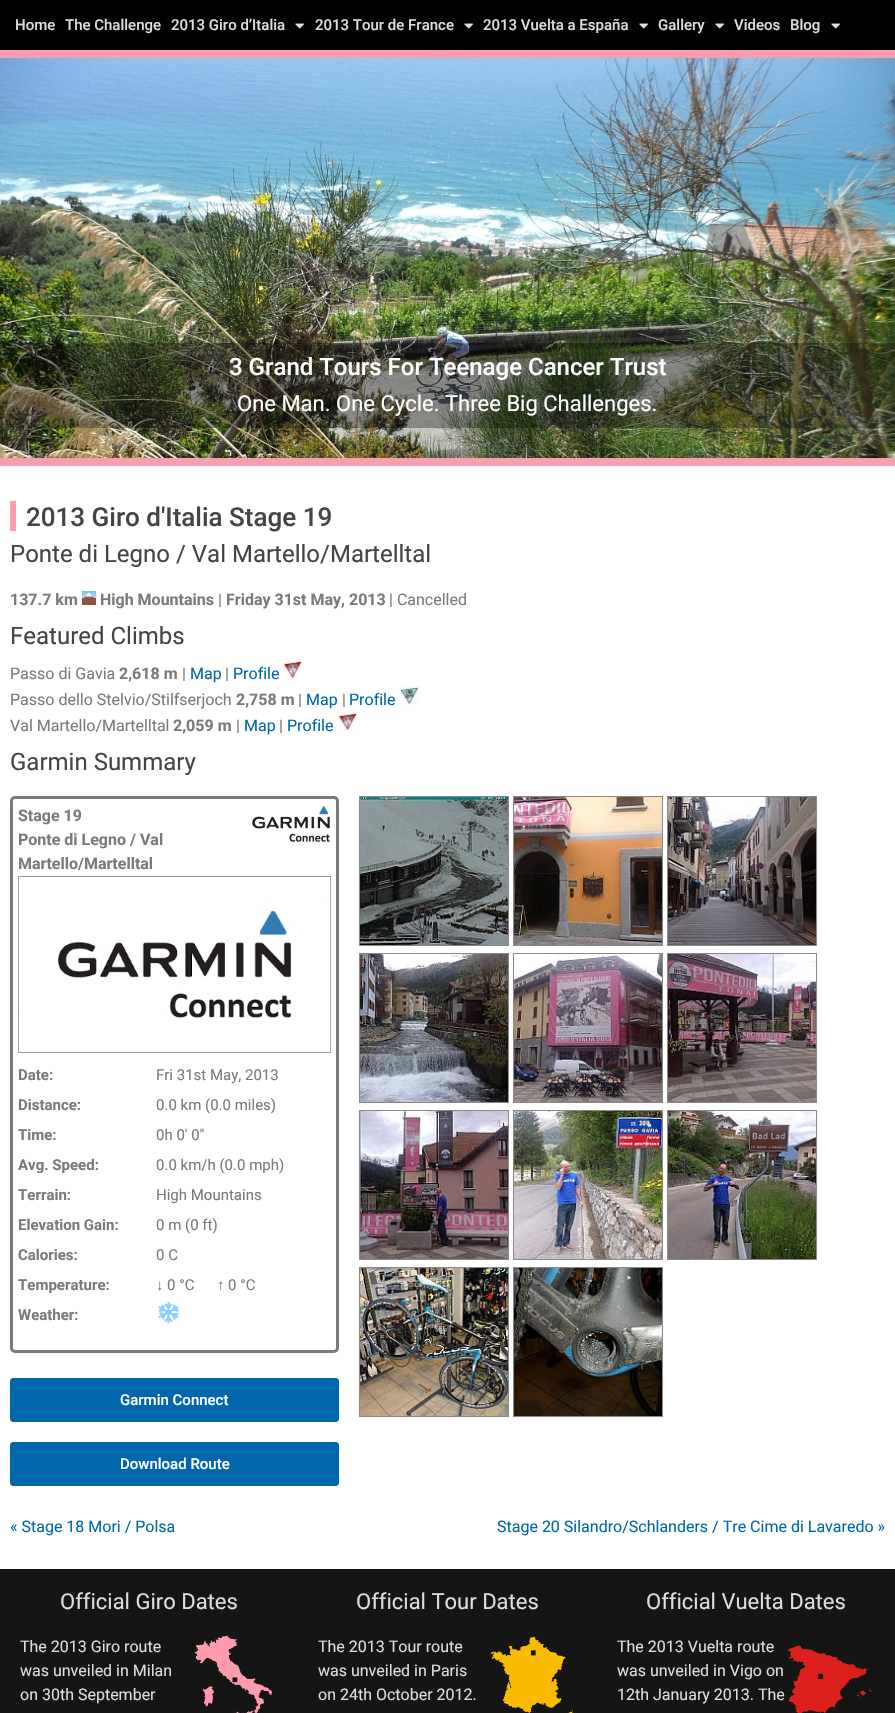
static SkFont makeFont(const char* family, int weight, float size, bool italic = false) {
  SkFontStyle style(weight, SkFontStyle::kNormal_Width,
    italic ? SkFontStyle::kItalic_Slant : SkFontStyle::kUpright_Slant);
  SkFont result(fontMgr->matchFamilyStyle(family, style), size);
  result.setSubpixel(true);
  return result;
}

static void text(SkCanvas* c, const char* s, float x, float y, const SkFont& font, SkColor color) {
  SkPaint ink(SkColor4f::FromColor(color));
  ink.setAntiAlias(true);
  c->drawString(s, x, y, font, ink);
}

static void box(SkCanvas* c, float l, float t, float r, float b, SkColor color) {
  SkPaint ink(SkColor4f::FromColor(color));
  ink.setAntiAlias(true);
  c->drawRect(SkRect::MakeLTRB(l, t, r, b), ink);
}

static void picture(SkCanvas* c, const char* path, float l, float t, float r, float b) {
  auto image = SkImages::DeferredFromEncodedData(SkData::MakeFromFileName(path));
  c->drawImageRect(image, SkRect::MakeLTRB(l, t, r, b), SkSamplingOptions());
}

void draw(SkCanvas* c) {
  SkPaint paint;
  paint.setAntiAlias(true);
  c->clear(0xffffffff);
  box(c, 0, 0, 895, 50, 0xff000000);
  SkFont face1 = makeFont("Roboto", 500, 15);
  text(c, "Home", 15, 30, face1, 0xffdddddd);
  text(c, "The Challenge", 65, 30, face1, 0xffdddddd);
  text(c, "2013 Giro d’Italia", 171, 30, face1, 0xffdddddd);
  picture(c, "img_01.png", 295, 23, 304, 29);
  text(c, "2013 Tour de France", 315, 30, face1, 0xffdddddd);
  picture(c, "img_01.png", 464, 23, 473, 29);
  text(c, "2013 Vuelta a España", 483, 30, face1, 0xffdddddd);
  picture(c, "img_01.png", 639, 23, 648, 29);
  text(c, "Gallery", 658, 30, face1, 0xffdddddd);
  picture(c, "img_01.png", 715, 23, 724, 29);
  text(c, "Videos", 734, 30, face1, 0xffdddddd);
  text(c, "Blog", 790, 30, face1, 0xffdddddd);
  picture(c, "img_01.png", 831, 23, 840, 29);
  picture(c, "img_02.png", 0, 50, 895, 466);
  box(c, 0, 343, 895, 428, 0x54000000);
  SkFont face2 = makeFont("Roboto", 500, 24);
  text(c, "3 Grand Tours For Teenage Cancer Trust", 229, 375, face2, 0xffffffff);
  SkFont face3 = makeFont("Roboto", 400, 22);
  text(c, "One Man. One Cycle. Three Big Challenges.", 237, 411, face3, 0xffffffff);
  box(c, 10, 501, 16, 531, 0xfffe9baf);
  SkFont face4 = makeFont("Roboto", 500, 26);
  text(c, "2013 Giro d'Italia Stage 19", 26, 526, face4, 0xff444444);
  SkFont face5 = makeFont("Roboto", 400, 24);
  text(c, "Ponte di Legno / Val Martello/Martelltal", 10, 562, face5, 0xff444444);
  SkFont face6 = makeFont("Roboto", 700, 16);
  text(c, "137.7 km", 10, 605, face6, 0xff7a7a7a);
  picture(c, "img_03.png", 82, 591, 96, 605);
  text(c, "High Mountains", 100, 605, face6, 0xff7a7a7a);
  SkFont face7 = makeFont("Roboto", 400, 16);
  text(c, "|", 218, 605, face7, 0xff7a7a7a);
  text(c, "Friday 31st May, 2013", 226, 605, face6, 0xff7a7a7a);
  text(c, "| Cancelled", 389, 605, face7, 0xff7a7a7a);
  text(c, "Featured Climbs", 10, 644, face5, 0xff444444);
  text(c, "Passo di Gavia", 10, 679, face7, 0xff7a7a7a);
  text(c, "2,618 m", 119, 679, face6, 0xff7a7a7a);
  text(c, "|", 182, 679, face7, 0xff7a7a7a);
  text(c, "Map", 190, 679, face7, 0xff0067ac);
  text(c, "|", 225, 679, face7, 0xff7a7a7a);
  text(c, "Profile", 233, 679, face7, 0xff0067ac);
  picture(c, "img_04.png", 283, 660, 302, 679);
  text(c, "Passo dello Stelvio/Stilfserjoch", 10, 705, face7, 0xff7a7a7a);
  text(c, "2,758 m", 236, 705, face6, 0xff7a7a7a);
  text(c, "|", 298, 705, face7, 0xff7a7a7a);
  text(c, "Map", 306, 705, face7, 0xff0067ac);
  text(c, "|", 342, 705, face7, 0xff7a7a7a);
  text(c, "Profile", 349, 705, face7, 0xff0067ac);
  picture(c, "img_05.png", 400, 686, 419, 705);
  text(c, "Val Martello/Martelltal", 10, 731, face7, 0xff7a7a7a);
  text(c, "2,059 m", 173, 731, face6, 0xff7a7a7a);
  text(c, "|", 236, 731, face7, 0xff7a7a7a);
  text(c, "Map", 244, 731, face7, 0xff0067ac);
  text(c, "|", 279, 731, face7, 0xff7a7a7a);
  text(c, "Profile", 287, 731, face7, 0xff0067ac);
  picture(c, "img_06.png", 338, 712, 357, 731);
  text(c, "Garmin Summary", 10, 770, face5, 0xff444444);
  paint.setStyle(SkPaint::kStroke_Style);
  paint.setStrokeWidth(3);
  paint.setColor(0xff7a7a7a);
  c->drawRoundRect(SkRect::MakeLTRB(11.5f, 797.5f, 337.5f, 1351.5f), 3.5f, 3.5f, paint);
  text(c, "Stage 19", 18, 821, face6, 0xff7a7a7a);
  picture(c, "img_07.png", 252, 806, 330, 842);
  text(c, "Ponte di Legno / Val", 18, 845, face6, 0xff7a7a7a);
  text(c, "Martello/Martelltal", 18, 869, face6, 0xff7a7a7a);
  picture(c, "img_08.png", 18, 876, 331, 1053);
  SkFont face8 = makeFont("Roboto", 700, 15);
  text(c, "Date:", 18, 1080, face8, 0xff7a7a7a);
  SkFont face9 = makeFont("Roboto", 400, 15);
  text(c, "Fri 31st May, 2013", 156, 1080, face9, 0xff7a7a7a);
  text(c, "Distance:", 18, 1110, face8, 0xff7a7a7a);
  text(c, "0.0 km (0.0 miles)", 156, 1110, face9, 0xff7a7a7a);
  text(c, "Time:", 18, 1140, face8, 0xff7a7a7a);
  text(c, "0h 0′ 0″", 156, 1140, face9, 0xff7a7a7a);
  text(c, "Avg. Speed:", 18, 1170, face8, 0xff7a7a7a);
  text(c, "0.0 km/h (0.0 mph)", 156, 1170, face9, 0xff7a7a7a);
  text(c, "Terrain:", 18, 1200, face8, 0xff7a7a7a);
  text(c, "High Mountains", 156, 1200, face9, 0xff7a7a7a);
  text(c, "Elevation Gain:", 18, 1230, face8, 0xff7a7a7a);
  text(c, "0 m (0 ft)", 156, 1230, face9, 0xff7a7a7a);
  text(c, "Calories:", 18, 1260, face8, 0xff7a7a7a);
  text(c, "0 C", 156, 1260, face9, 0xff7a7a7a);
  text(c, "Temperature:", 18, 1290, face8, 0xff7a7a7a);
  SkFont face10 = makeFont("Liberation Sans", 400, 15);
  text(c, "↓", 156, 1290, face10, 0xff7a7a7a);
  text(c, "0 °C", 167, 1290, face9, 0xff7a7a7a);
  text(c, "↑", 217, 1290, face10, 0xff7a7a7a);
  text(c, "0 °C", 228, 1290, face9, 0xff7a7a7a);
  text(c, "Weather:", 18, 1320, face8, 0xff7a7a7a);
  picture(c, "img_09.png", 158, 1301, 179, 1324);
  paint.setStyle(SkPaint::kFill_Style);
  paint.setColor(0xff0067ac);
  c->drawRoundRect(SkRect::MakeLTRB(10.5f, 1378.5f, 338.5f, 1421.5f), 2.5f, 2.5f, paint);
  paint.setStyle(SkPaint::kStroke_Style);
  paint.setStrokeWidth(1);
  c->drawRoundRect(SkRect::MakeLTRB(10.5f, 1378.5f, 338.5f, 1421.5f), 2.5f, 2.5f, paint);
  text(c, "Garmin Connect", 120, 1405, face1, 0xffffffff);
  paint.setStyle(SkPaint::kFill_Style);
  c->drawRoundRect(SkRect::MakeLTRB(10.5f, 1442.5f, 338.5f, 1485.5f), 2.5f, 2.5f, paint);
  paint.setStyle(SkPaint::kStroke_Style);
  c->drawRoundRect(SkRect::MakeLTRB(10.5f, 1442.5f, 338.5f, 1485.5f), 2.5f, 2.5f, paint);
  text(c, "Download Route", 120, 1469, face1, 0xffffffff);
  paint.setColor(0xff888888);
  c->drawRect(SkRect::MakeLTRB(359.5f, 796.5f, 508.5f, 945.5f), paint);
  c->drawRect(SkRect::MakeLTRB(513.5f, 796.5f, 662.5f, 945.5f), paint);
  c->drawRect(SkRect::MakeLTRB(667.5f, 796.5f, 816.5f, 945.5f), paint);
  picture(c, "img_10.png", 360, 797, 508, 945);
  picture(c, "img_11.png", 514, 797, 662, 945);
  picture(c, "img_12.png", 668, 797, 816, 945);
  c->drawRect(SkRect::MakeLTRB(359.5f, 953.5f, 508.5f, 1102.5f), paint);
  c->drawRect(SkRect::MakeLTRB(513.5f, 953.5f, 662.5f, 1102.5f), paint);
  c->drawRect(SkRect::MakeLTRB(667.5f, 953.5f, 816.5f, 1102.5f), paint);
  picture(c, "img_13.png", 360, 954, 508, 1102);
  picture(c, "img_14.png", 514, 954, 662, 1102);
  picture(c, "img_15.png", 668, 954, 816, 1102);
  c->drawRect(SkRect::MakeLTRB(359.5f, 1110.5f, 508.5f, 1259.5f), paint);
  c->drawRect(SkRect::MakeLTRB(513.5f, 1110.5f, 662.5f, 1259.5f), paint);
  c->drawRect(SkRect::MakeLTRB(667.5f, 1110.5f, 816.5f, 1259.5f), paint);
  picture(c, "img_16.png", 360, 1111, 508, 1259);
  picture(c, "img_17.png", 514, 1111, 662, 1259);
  picture(c, "img_18.png", 668, 1111, 816, 1259);
  c->drawRect(SkRect::MakeLTRB(359.5f, 1267.5f, 508.5f, 1416.5f), paint);
  c->drawRect(SkRect::MakeLTRB(513.5f, 1267.5f, 662.5f, 1416.5f), paint);
  picture(c, "img_19.png", 360, 1268, 508, 1416);
  picture(c, "img_20.png", 514, 1268, 662, 1416);
  text(c, "« Stage 18 Mori / Polsa", 10, 1532, face7, 0xff0067ac);
  text(c, "Stage 20 Silandro/Schlanders / Tre Cime di Lavaredo »", 497, 1532, face7, 0xff0067ac);
  box(c, 0, 1569, 895, 1713, 0xff151515);
  text(c, "Official Giro Dates", 60, 1609, face3, 0xffdddddd);
  text(c, "The 2013 Giro route", 20, 1652, face7, 0xffdddddd);
  picture(c, "img_21.png", 194, 1635, 273, 1713);
  text(c, "was unveiled in Milan", 20, 1676, face7, 0xffdddddd);
  text(c, "on 30th September", 20, 1700, face7, 0xffdddddd);
  text(c, "Official Tour Dates", 356, 1609, face3, 0xffdddddd);
  text(c, "The 2013 Tour route", 318, 1652, face7, 0xffdddddd);
  picture(c, "img_22.png", 490, 1637, 573, 1713);
  text(c, "was unveiled in Paris", 318, 1676, face7, 0xffdddddd);
  text(c, "on 24th October 2012.", 318, 1700, face7, 0xffdddddd);
  text(c, "Official Vuelta Dates", 646, 1609, face3, 0xffdddddd);
  text(c, "The 2013 Vuelta route", 617, 1652, face7, 0xffdddddd);
  picture(c, "img_23.png", 788, 1645, 872, 1713);
  text(c, "was unveiled in Vigo on", 617, 1676, face7, 0xffdddddd);
  text(c, "12th January 2013. The", 617, 1700, face7, 0xffdddddd);
}
